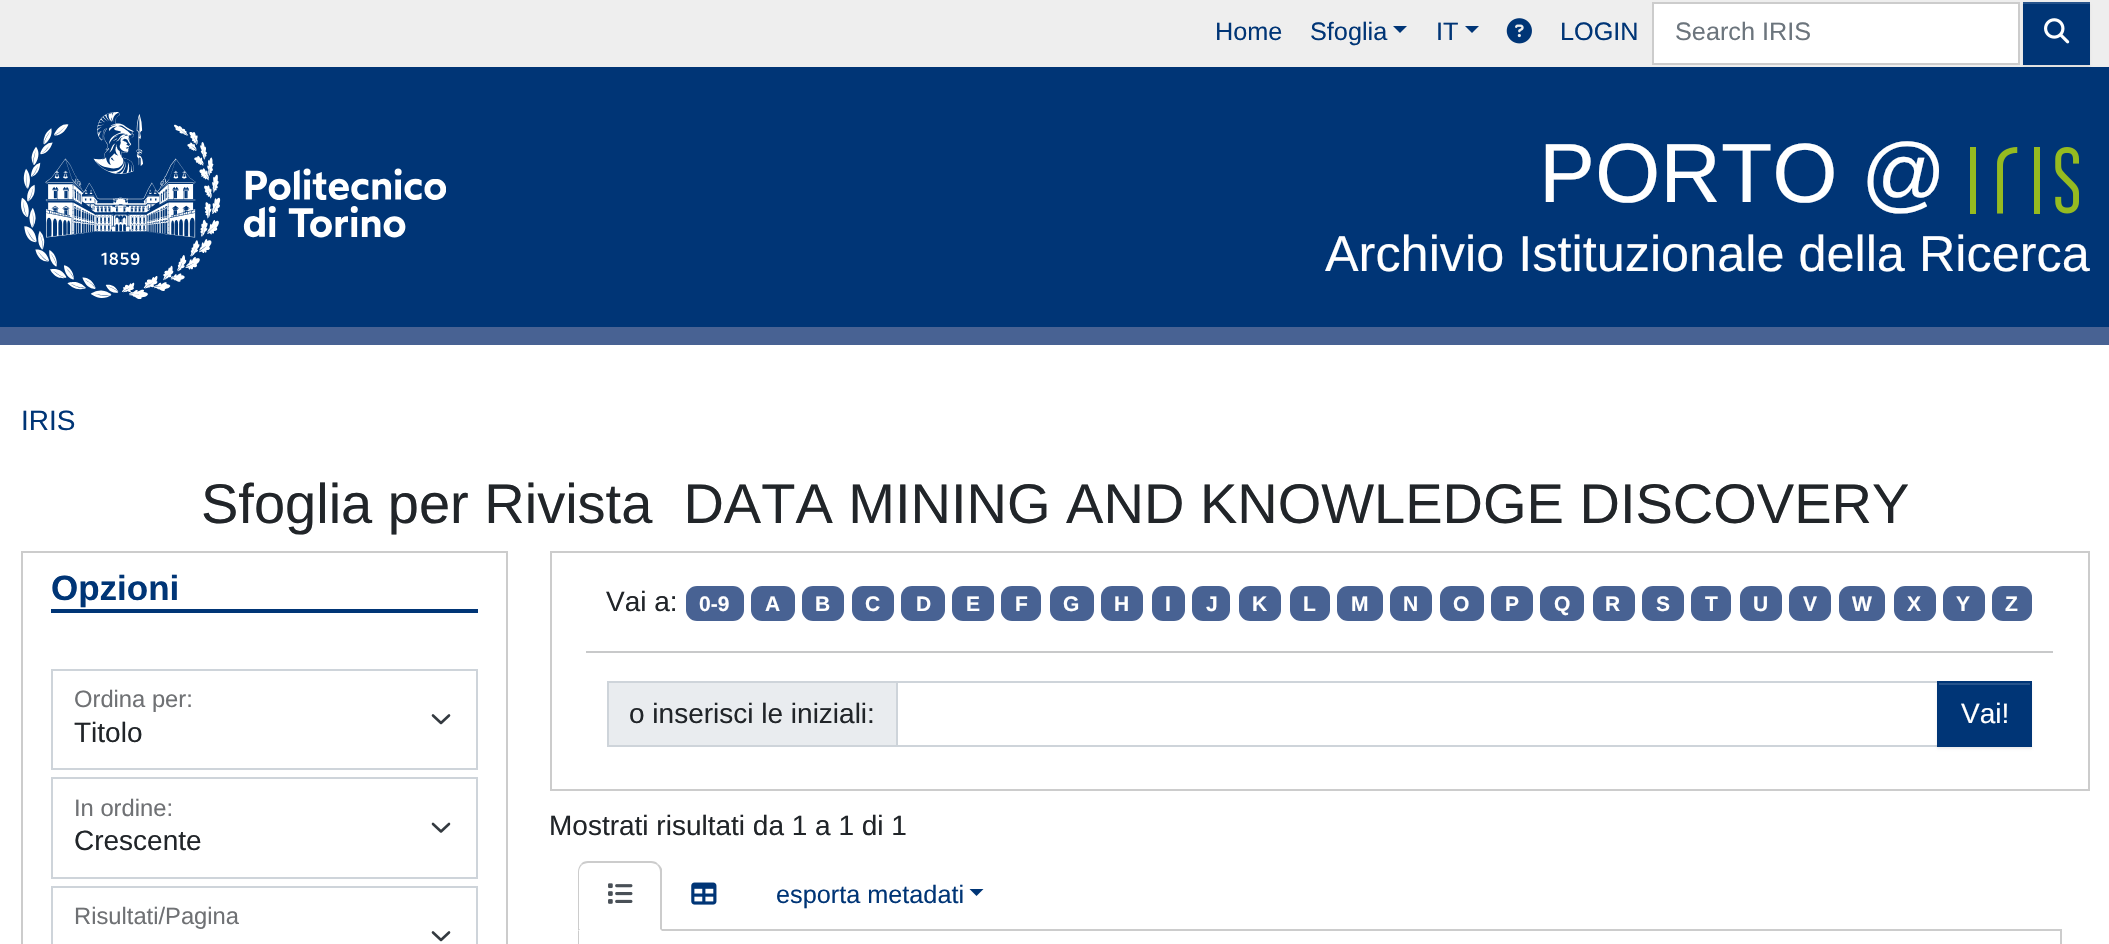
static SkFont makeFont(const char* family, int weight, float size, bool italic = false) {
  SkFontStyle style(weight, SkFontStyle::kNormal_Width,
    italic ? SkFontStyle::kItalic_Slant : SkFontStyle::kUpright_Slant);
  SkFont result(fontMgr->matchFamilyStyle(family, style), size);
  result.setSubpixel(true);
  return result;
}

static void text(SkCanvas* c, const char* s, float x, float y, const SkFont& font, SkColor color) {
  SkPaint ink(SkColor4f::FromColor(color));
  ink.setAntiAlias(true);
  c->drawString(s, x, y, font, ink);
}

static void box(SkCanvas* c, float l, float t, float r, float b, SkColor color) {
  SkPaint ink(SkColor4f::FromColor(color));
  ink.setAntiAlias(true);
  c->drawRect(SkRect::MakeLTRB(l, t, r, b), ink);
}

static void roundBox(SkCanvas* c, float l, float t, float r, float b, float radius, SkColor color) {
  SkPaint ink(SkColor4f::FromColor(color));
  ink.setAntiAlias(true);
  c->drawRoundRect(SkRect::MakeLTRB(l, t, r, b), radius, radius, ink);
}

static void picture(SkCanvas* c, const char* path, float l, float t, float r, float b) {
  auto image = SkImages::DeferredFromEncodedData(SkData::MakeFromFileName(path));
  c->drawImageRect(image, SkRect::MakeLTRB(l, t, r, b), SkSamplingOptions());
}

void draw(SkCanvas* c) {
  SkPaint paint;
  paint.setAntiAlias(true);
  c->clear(0xffffffff);
  box(c, 0, 0, 2109, 67, 0xffeeeeee);
  SkFont face1 = makeFont("Liberation Sans", 400, 25.25f);
  text(c, "Home", 1215, 40, face1, 0xff003576);
  text(c, "Sfoglia", 1310, 40, face1, 0xff003576);
  paint.setColor(0xff003576);
  c->drawPath(SkPathBuilder().moveTo(1393, 26).lineTo(1407, 26).lineTo(1400, 33).close().detach(), paint);
  text(c, "IT", 1436, 40, face1, 0xff003576);
  c->drawPath(SkPathBuilder().moveTo(1465, 26).lineTo(1479, 26).lineTo(1472, 33).close().detach(), paint);
  picture(c, "img_01.png", 1506, 18, 1532, 44);
  text(c, "LOGIN", 1560, 40, face1, 0xff003576);
  paint.setColor(0xffffffff);
  c->drawRect(SkRect::MakeLTRB(1653, 3, 2019, 64), paint);
  paint.setStyle(SkPaint::kStroke_Style);
  paint.setStrokeWidth(2);
  paint.setColor(0xffcccccc);
  c->drawRect(SkRect::MakeLTRB(1653, 3, 2019, 64), paint);
  text(c, "Search IRIS", 1675, 40, face1, 0xff6c757d);
  box(c, 0, 67, 2109, 327, 0xff003576);
  paint.setStyle(SkPaint::kFill_Style);
  paint.setColor(0x12000000);
  paint.setMaskFilter(SkMaskFilter::MakeBlur(kNormal_SkBlurStyle, 1));
  c->drawRect(SkRect::MakeLTRB(2023, 4, 2090, 67), paint);
  paint.setMaskFilter(nullptr);
  box(c, 2023, 4, 2090, 65, 0xff003576);
  box(c, 2023, 2, 2090, 4, 0xff26538b);
  picture(c, "img_02.png", 2044, 18, 2070, 44);
  box(c, 0, 327, 2109, 345, 0xff486293);
  picture(c, "img_03.png", 21, 112, 446, 299);
  SkFont face2 = makeFont("Liberation Sans", 400, 84);
  text(c, "PORTO @", 1539, 202, face2, 0xffffffff);
  picture(c, "img_04.png", 1970, 147, 2079, 214);
  SkFont face3 = makeFont("Liberation Sans", 400, 50.4f);
  text(c, "Archivio Istituzionale della Ricerca", 1325, 271, face3, 0xffffffff);
  SkFont face4 = makeFont("Liberation Sans", 400, 28);
  text(c, "IRIS", 21, 430, face4, 0xff003576);
  SkFont face5 = makeFont("Liberation Sans", 400, 56);
  text(c, "Sfoglia per Rivista  DATA MINING AND KNOWLEDGE DISCOVERY", 201, 523, face5, 0xff212529);
  paint.setStyle(SkPaint::kStroke_Style);
  paint.setColor(0xffcccccc);
  c->drawRect(SkRect::MakeLTRB(22, 552, 507, 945), paint);
  box(c, 51, 609, 478, 613, 0xff003576);
  SkFont face6 = makeFont("Liberation Sans", 700, 35);
  text(c, "Opzioni", 51, 600, face6, 0xff003576);
  paint.setStrokeWidth(2.6f);
  paint.setStrokeCap(SkPaint::kRound_Cap);
  paint.setStrokeJoin(SkPaint::kRound_Join);
  paint.setColor(0xff343a40);
  c->drawPath(SkPathBuilder().moveTo(433, 715.5f).lineTo(441, 723).lineTo(449, 715.5f).detach(), paint);
  paint.setStrokeWidth(2);
  paint.setStrokeCap(SkPaint::kButt_Cap);
  paint.setStrokeJoin(SkPaint::kMiter_Join);
  paint.setColor(0xffced4da);
  c->drawRect(SkRect::MakeLTRB(52, 670, 477, 769), paint);
  SkFont face7 = makeFont("Liberation Sans", 400, 23.75f);
  text(c, "Ordina per:", 74, 707, face7, 0xff6f7174);
  text(c, "Titolo", 74, 742, face4, 0xff212529);
  paint.setStrokeWidth(2.6f);
  paint.setStrokeCap(SkPaint::kRound_Cap);
  paint.setStrokeJoin(SkPaint::kRound_Join);
  paint.setColor(0xff343a40);
  c->drawPath(SkPathBuilder().moveTo(433, 824).lineTo(441, 831.5f).lineTo(449, 824).detach(), paint);
  paint.setStrokeWidth(2);
  paint.setStrokeCap(SkPaint::kButt_Cap);
  paint.setStrokeJoin(SkPaint::kMiter_Join);
  paint.setColor(0xffced4da);
  c->drawRect(SkRect::MakeLTRB(52, 778, 477, 878), paint);
  text(c, "In ordine:", 74, 816, face7, 0xff6f7174);
  text(c, "Crescente", 74, 850, face4, 0xff212529);
  paint.setStrokeWidth(2.6f);
  paint.setStrokeCap(SkPaint::kRound_Cap);
  paint.setStrokeJoin(SkPaint::kRound_Join);
  paint.setColor(0xff343a40);
  c->drawPath(SkPathBuilder().moveTo(433, 932.5f).lineTo(441, 940).lineTo(449, 932.5f).detach(), paint);
  paint.setStrokeWidth(2);
  paint.setStrokeCap(SkPaint::kButt_Cap);
  paint.setStrokeJoin(SkPaint::kMiter_Join);
  paint.setColor(0xffced4da);
  c->drawRect(SkRect::MakeLTRB(52, 887, 477, 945), paint);
  text(c, "Risultati/Pagina", 74, 924, face7, 0xff6f7174);
  paint.setColor(0xffcccccc);
  c->drawRect(SkRect::MakeLTRB(551, 552, 2089, 790), paint);
  text(c, "Vai a:", 606, 611, face4, 0xff212529);
  roundBox(c, 686, 586, 744, 621, 11, 0xff486293);
  SkFont face8 = makeFont("Liberation Sans", 700, 21);
  text(c, "0-9", 699, 611, face8, 0xffffffff);
  roundBox(c, 751, 586, 795, 621, 11, 0xff486293);
  text(c, "A", 765, 611, face8, 0xffffffff);
  roundBox(c, 802, 586, 844, 621, 11, 0xff486293);
  text(c, "B", 815, 611, face8, 0xffffffff);
  roundBox(c, 852, 586, 894, 621, 11, 0xff486293);
  text(c, "C", 865, 611, face8, 0xffffffff);
  roundBox(c, 901, 586, 945, 621, 11, 0xff486293);
  text(c, "D", 916, 611, face8, 0xffffffff);
  roundBox(c, 952, 586, 994, 621, 11, 0xff486293);
  text(c, "E", 966, 611, face8, 0xffffffff);
  roundBox(c, 1001, 586, 1041, 621, 11, 0xff486293);
  text(c, "F", 1015, 611, face8, 0xffffffff);
  roundBox(c, 1050, 586, 1094, 621, 11, 0xff486293);
  text(c, "G", 1063, 611, face8, 0xffffffff);
  roundBox(c, 1101, 586, 1143, 621, 11, 0xff486293);
  text(c, "H", 1114, 611, face8, 0xffffffff);
  roundBox(c, 1152, 586, 1185, 621, 11, 0xff486293);
  text(c, "I", 1165, 611, face8, 0xffffffff);
  roundBox(c, 1192, 586, 1230, 621, 11, 0xff486293);
  text(c, "J", 1206, 611, face8, 0xffffffff);
  roundBox(c, 1239, 586, 1281, 621, 11, 0xff486293);
  text(c, "K", 1252, 611, face8, 0xffffffff);
  roundBox(c, 1290, 586, 1330, 621, 11, 0xff486293);
  text(c, "L", 1303, 611, face8, 0xffffffff);
  roundBox(c, 1337, 586, 1383, 621, 11, 0xff486293);
  text(c, "M", 1351, 611, face8, 0xffffffff);
  roundBox(c, 1390, 586, 1432, 621, 11, 0xff486293);
  text(c, "N", 1403, 611, face8, 0xffffffff);
  roundBox(c, 1440, 586, 1484, 621, 11, 0xff486293);
  text(c, "O", 1453, 611, face8, 0xffffffff);
  roundBox(c, 1491, 586, 1533, 621, 11, 0xff486293);
  text(c, "P", 1505, 611, face8, 0xffffffff);
  roundBox(c, 1540, 586, 1584, 621, 11, 0xff486293);
  text(c, "Q", 1554, 611, face8, 0xffffffff);
  roundBox(c, 1593, 586, 1635, 621, 11, 0xff486293);
  text(c, "R", 1605, 611, face8, 0xffffffff);
  roundBox(c, 1642, 586, 1684, 621, 11, 0xff486293);
  text(c, "S", 1656, 611, face8, 0xffffffff);
  roundBox(c, 1691, 586, 1731, 621, 11, 0xff486293);
  text(c, "T", 1705, 611, face8, 0xffffffff);
  roundBox(c, 1740, 586, 1782, 621, 11, 0xff486293);
  text(c, "U", 1753, 611, face8, 0xffffffff);
  roundBox(c, 1789, 586, 1831, 621, 11, 0xff486293);
  text(c, "V", 1803, 611, face8, 0xffffffff);
  roundBox(c, 1839, 586, 1885, 621, 11, 0xff486293);
  text(c, "W", 1852, 611, face8, 0xffffffff);
  roundBox(c, 1894, 586, 1936, 621, 11, 0xff486293);
  text(c, "X", 1907, 611, face8, 0xffffffff);
  roundBox(c, 1943, 586, 1985, 621, 11, 0xff486293);
  text(c, "Y", 1956, 611, face8, 0xffffffff);
  roundBox(c, 1992, 586, 2032, 621, 11, 0xff486293);
  text(c, "Z", 2005, 611, face8, 0xffffffff);
  box(c, 586, 651, 2053, 653, 0xffc8c9ca);
  paint.setStyle(SkPaint::kFill_Style);
  paint.setColor(0xffe9ecef);
  c->drawRect(SkRect::MakeLTRB(608, 682, 897, 746), paint);
  paint.setStyle(SkPaint::kStroke_Style);
  paint.setColor(0xffced4da);
  c->drawRect(SkRect::MakeLTRB(608, 682, 897, 746), paint);
  text(c, "o inserisci le iniziali:", 629, 723, face4, 0xff212529);
  c->drawRect(SkRect::MakeLTRB(897, 682, 1938, 746), paint);
  paint.setStyle(SkPaint::kFill_Style);
  paint.setColor(0x12000000);
  paint.setMaskFilter(SkMaskFilter::MakeBlur(kNormal_SkBlurStyle, 1));
  c->drawRect(SkRect::MakeLTRB(1937, 683, 2032, 749), paint);
  paint.setMaskFilter(nullptr);
  box(c, 1937, 681, 2032, 747, 0xff003576);
  box(c, 1939, 683, 2030, 685, 0xff26538b);
  text(c, "Vai!", 1961, 723, face4, 0xffffffff);
  text(c, "Mostrati risultati da 1 a 1 di 1", 549, 835, face4, 0xff212529);
  paint.setColor(0xffcccccc);
  c->drawPath(SkPathBuilder().moveTo(588, 861).cubicTo(585, 861, 582, 862, 581, 864).lineTo(582, 865).cubicTo(583, 864, 586, 863, 588, 863).lineTo(651, 863).cubicTo(653, 863, 656, 864, 657, 865).lineTo(658, 864).cubicTo(657, 862, 654, 861, 651, 861).close().detach(), paint);
  paint.setStyle(SkPaint::kStroke_Style);
  c->drawRect(SkRect::MakeLTRB(579, 930, 2061, 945), paint);
  paint.setStyle(SkPaint::kFill_Style);
  c->drawPath(SkPathBuilder().moveTo(662, 869).lineTo(662, 931).lineTo(660, 929).lineTo(660, 872).cubicTo(660, 869, 659, 867, 657, 865).lineTo(658, 864).cubicTo(660, 865, 661, 867, 662, 869).close().detach(), paint);
  paint.setColor(0xffffffff);
  c->drawPath(SkPathBuilder().moveTo(662, 931).lineTo(660, 929).lineTo(580, 929).lineTo(578, 931).close().detach(), paint);
  paint.setColor(0xffcccccc);
  c->drawPath(SkPathBuilder().moveTo(581, 864).cubicTo(579, 866, 578, 869, 578, 872).lineTo(578, 930).lineTo(580, 929).lineTo(579, 929).lineTo(579, 872).cubicTo(579, 869, 580, 867, 582, 865).close().detach(), paint);
  picture(c, "img_05.png", 608, 883, 633, 904);
  picture(c, "img_06.png", 691, 882, 717, 905);
  text(c, "esporta metadati", 776, 903, face1, 0xff003576);
  paint.setColor(0xff003576);
  c->drawPath(SkPathBuilder().moveTo(969.5f, 889).lineTo(983.5f, 889).lineTo(976.5f, 896).close().detach(), paint);
  box(c, 579, 931, 580, 944, 0xffffffff);
}
